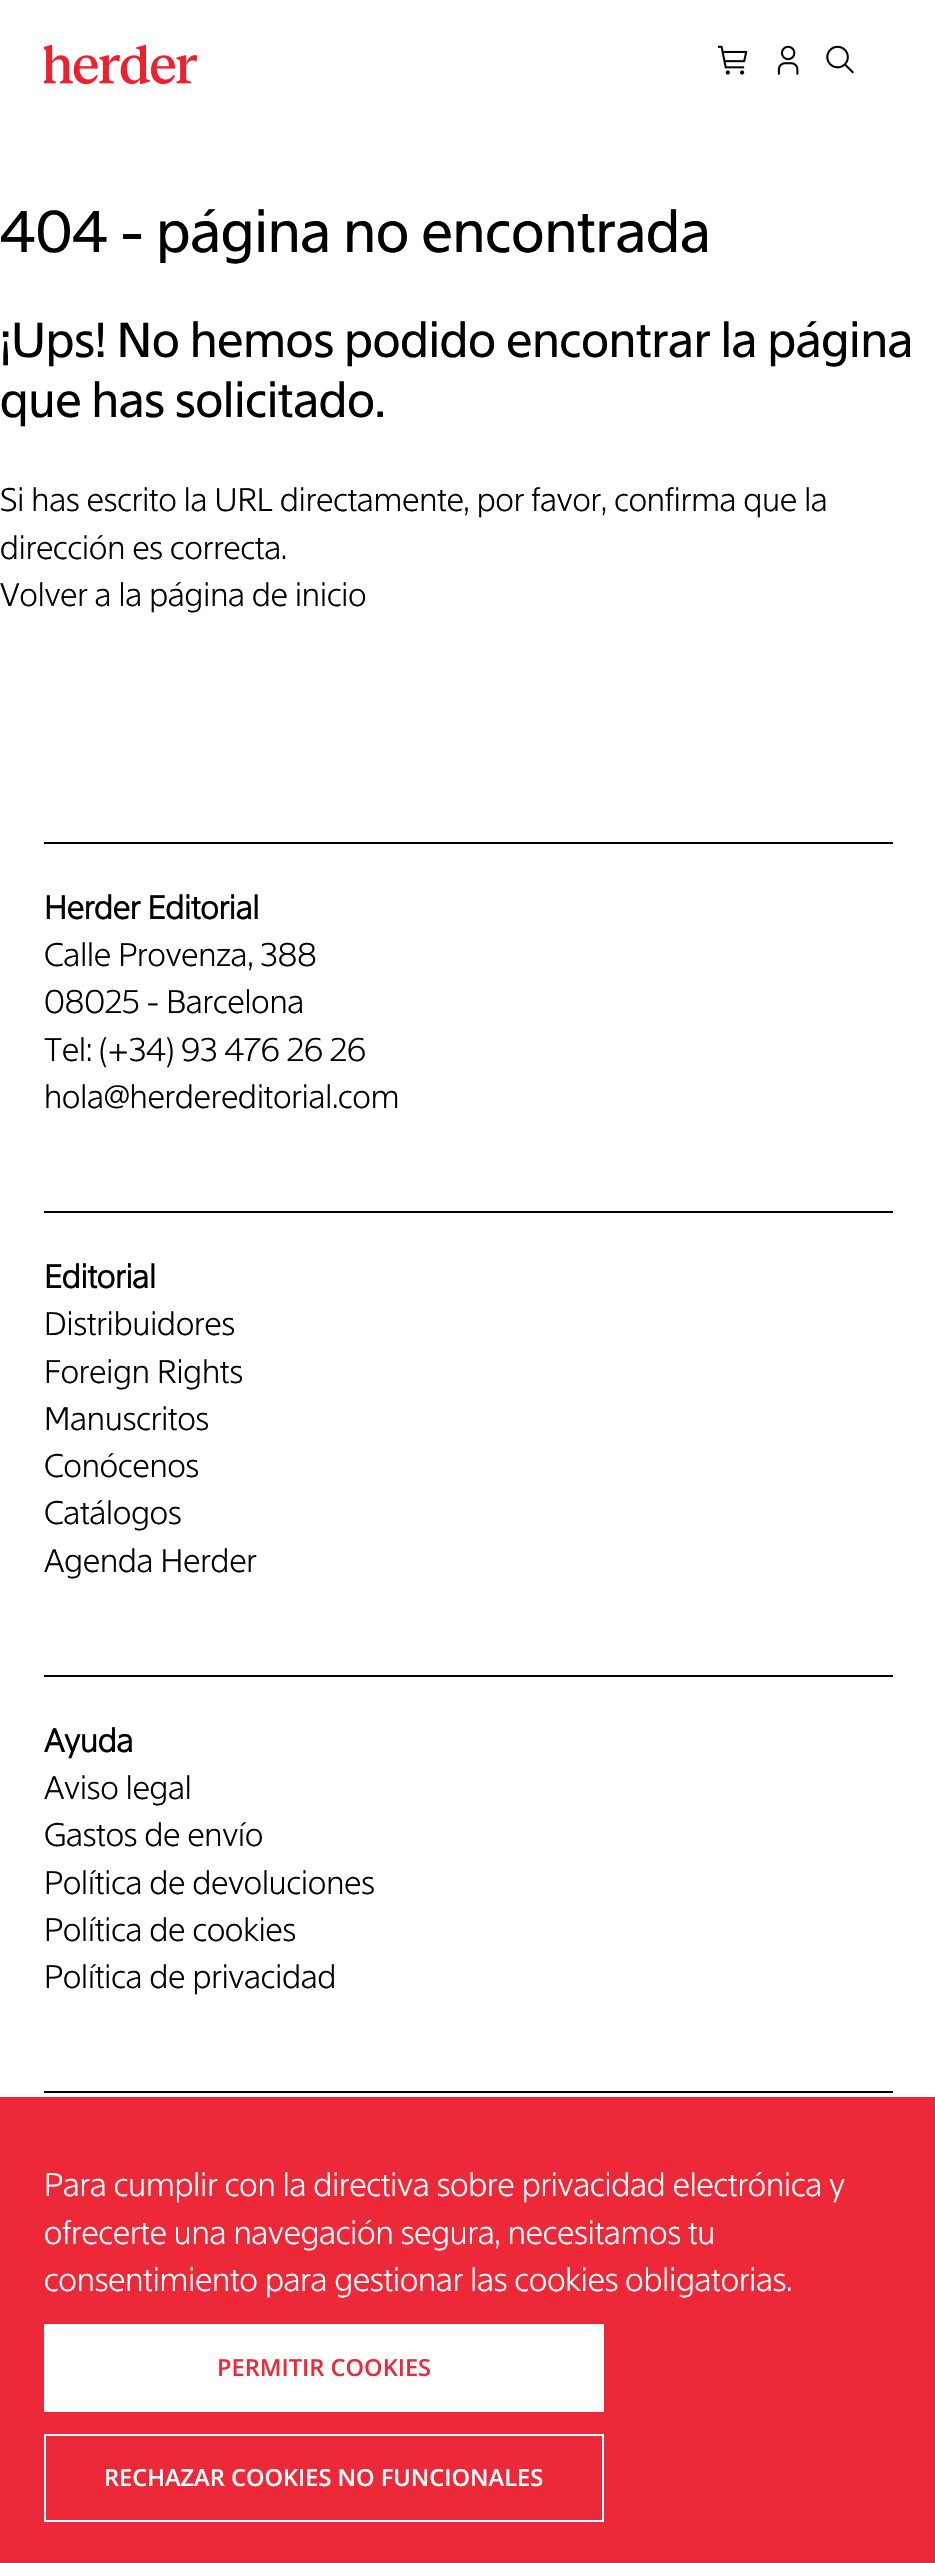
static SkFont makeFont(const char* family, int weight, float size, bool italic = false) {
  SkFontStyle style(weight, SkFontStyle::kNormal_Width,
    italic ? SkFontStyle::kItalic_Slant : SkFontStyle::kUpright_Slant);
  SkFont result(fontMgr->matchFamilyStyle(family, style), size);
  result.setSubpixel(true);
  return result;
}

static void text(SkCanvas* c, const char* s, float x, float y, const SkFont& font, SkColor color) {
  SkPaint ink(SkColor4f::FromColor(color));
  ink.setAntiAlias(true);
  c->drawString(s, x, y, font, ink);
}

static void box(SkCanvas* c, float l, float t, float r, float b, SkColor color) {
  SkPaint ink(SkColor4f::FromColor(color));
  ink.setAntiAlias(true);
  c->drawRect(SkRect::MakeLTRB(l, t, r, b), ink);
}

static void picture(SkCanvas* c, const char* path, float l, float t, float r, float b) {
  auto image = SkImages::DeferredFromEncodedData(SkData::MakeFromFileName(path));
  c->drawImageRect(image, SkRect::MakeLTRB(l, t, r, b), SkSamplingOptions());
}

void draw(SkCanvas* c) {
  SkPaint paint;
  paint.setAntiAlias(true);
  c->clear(0xffffffff);
  picture(c, "img_01.png", 44, 45, 198, 85);
  picture(c, "img_02.png", 718, 45, 748, 75);
  picture(c, "img_03.png", 777, 45, 799, 75);
  picture(c, "img_04.png", 826, 45, 854, 74);
  SkFont face1 = makeFont("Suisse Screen", 400, 56.6f);
  text(c, "404 - página no encontrada", 0, 252, face1, 0xff000000);
  SkFont face2 = makeFont("Suisse Screen", 400, 47.25f);
  text(c, "¡Ups! No hemos podido encontrar la página", 0, 357, face2, 0xff000000);
  text(c, "que has solicitado.", 0, 417, face2, 0xff000000);
  SkFont face3 = makeFont("Suisse Screen", 300, 31.5f);
  text(c, "Si has escrito la URL directamente, por favor, confirma que la", 0, 511, face3, 0xff000000);
  text(c, "dirección es correcta.", 0, 559, face3, 0xff000000);
  text(c, "Volver a la página de inicio", 0, 606, face3, 0xff000000);
  box(c, 44, 842, 893, 844, 0xff000000);
  SkFont face4 = makeFont("Suisse Screen", 700, 31.5f);
  text(c, "Herder Editorial", 44, 919, face4, 0xff000000);
  text(c, "Calle Provenza, 388", 44, 966, face3, 0xff000000);
  text(c, "08025 - Barcelona", 44, 1013, face3, 0xff000000);
  text(c, "Tel: (+34) 93 476 26 26", 44, 1061, face3, 0xff000000);
  text(c, "hola@herdereditorial.com", 44, 1108, face3, 0xff000000);
  box(c, 44, 1211, 893, 1213, 0xff000000);
  text(c, "Editorial", 44, 1288, face4, 0xff000000);
  text(c, "Distribuidores", 44, 1335, face3, 0xff000000);
  text(c, "Foreign Rights", 44, 1383, face3, 0xff000000);
  text(c, "Manuscritos", 44, 1430, face3, 0xff000000);
  text(c, "Conócenos", 44, 1477, face3, 0xff000000);
  text(c, "Catálogos", 44, 1524, face3, 0xff000000);
  text(c, "Agenda Herder", 44, 1572, face3, 0xff000000);
  box(c, 44, 1675, 893, 1677, 0xff000000);
  text(c, "Ayuda", 44, 1752, face4, 0xff000000);
  text(c, "Aviso legal", 44, 1799, face3, 0xff000000);
  text(c, "Gastos de envío", 44, 1846, face3, 0xff000000);
  text(c, "Política de devoluciones", 44, 1894, face3, 0xff000000);
  text(c, "Política de cookies", 44, 1941, face3, 0xff000000);
  text(c, "Política de privacidad", 44, 1988, face3, 0xff000000);
  box(c, 44, 2091, 893, 2093, 0xff000000);
  box(c, 0, 2097, 935, 2563, 0xffed2939);
  text(c, "Para cumplir con la directiva sobre privacidad electrónica y", 44, 2196, face3, 0xffffffff);
  text(c, "ofrecerte una navegación segura, necesitamos tu", 44, 2244, face3, 0xffffffff);
  text(c, "consentimiento para gestionar las cookies obligatorias.", 44, 2291, face3, 0xffffffff);
  box(c, 44, 2324, 604, 2412, 0xffffffff);
  SkFont face5 = makeFont("Open Sans", 600, 23.6f);
  text(c, "PERMITIR COOKIES", 217, 2376, face5, 0xffed2939);
  paint.setStyle(SkPaint::kStroke_Style);
  paint.setStrokeWidth(2);
  paint.setColor(0xffffffff);
  c->drawRect(SkRect::MakeLTRB(45, 2435, 603, 2521), paint);
  text(c, "RECHAZAR COOKIES NO FUNCIONALES", 104, 2486, face5, 0xffffffff);
}
